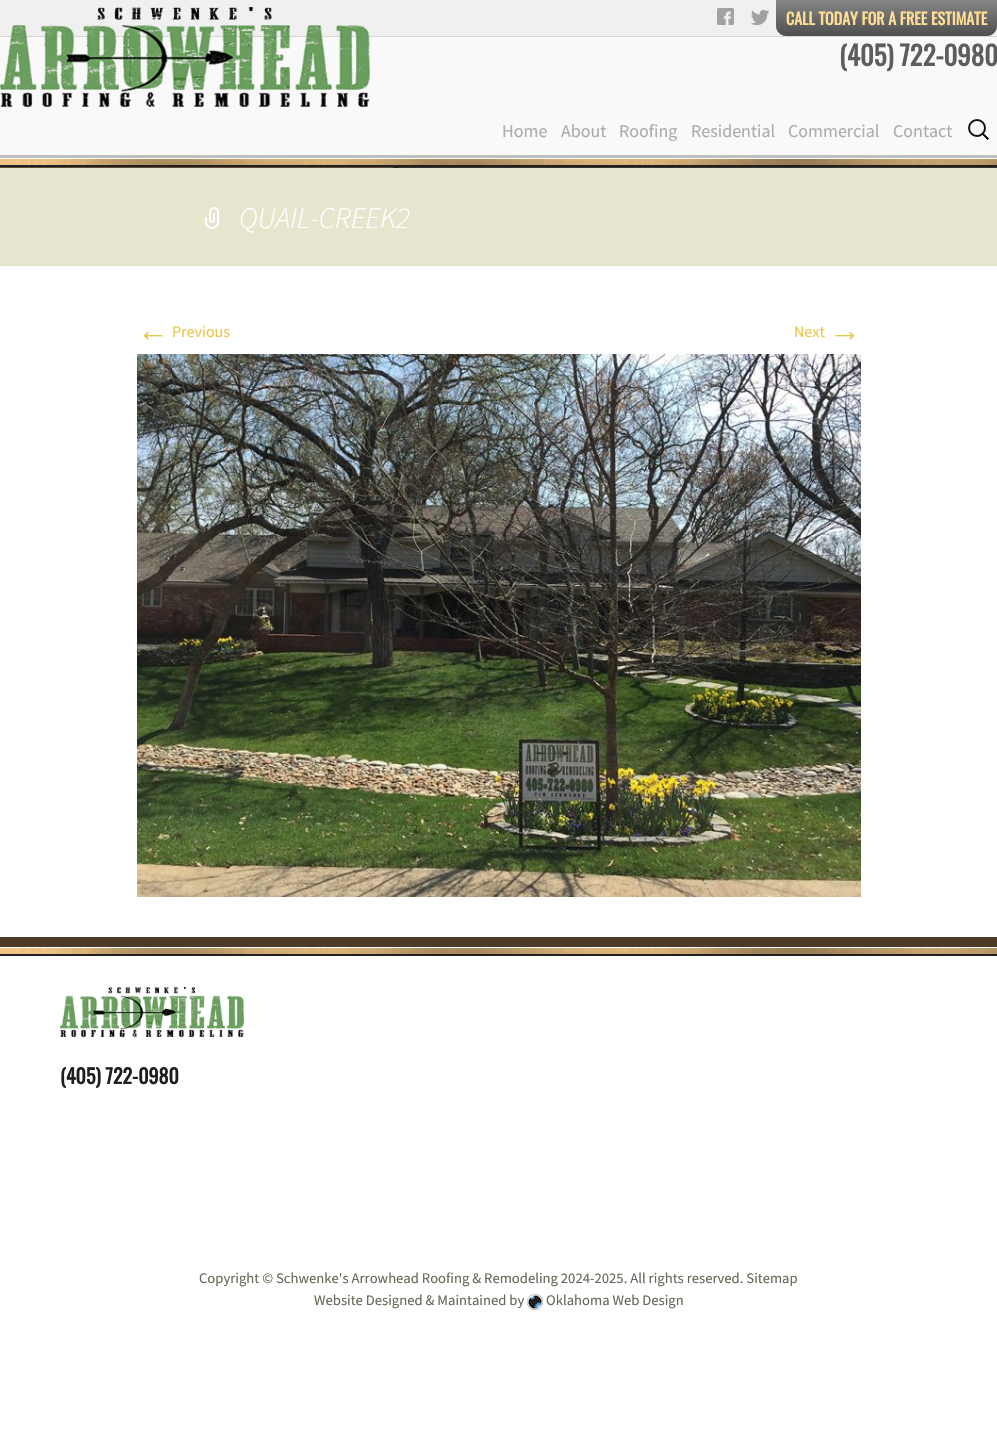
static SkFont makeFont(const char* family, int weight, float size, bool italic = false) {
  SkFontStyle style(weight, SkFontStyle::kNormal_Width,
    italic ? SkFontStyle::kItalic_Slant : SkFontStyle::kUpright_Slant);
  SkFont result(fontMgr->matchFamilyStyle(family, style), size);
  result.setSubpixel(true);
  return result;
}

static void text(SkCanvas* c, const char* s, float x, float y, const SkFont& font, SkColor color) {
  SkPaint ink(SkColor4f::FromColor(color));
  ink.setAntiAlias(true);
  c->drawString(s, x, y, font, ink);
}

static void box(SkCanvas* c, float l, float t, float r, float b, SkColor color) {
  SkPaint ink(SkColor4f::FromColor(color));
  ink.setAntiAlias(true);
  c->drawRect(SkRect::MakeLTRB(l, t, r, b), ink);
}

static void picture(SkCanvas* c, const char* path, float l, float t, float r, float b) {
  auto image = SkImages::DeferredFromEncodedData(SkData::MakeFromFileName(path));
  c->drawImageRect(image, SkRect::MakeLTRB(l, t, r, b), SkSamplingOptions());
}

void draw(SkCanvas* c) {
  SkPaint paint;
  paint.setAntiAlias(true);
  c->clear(0xffffffff);
  box(c, 0, 37, 997, 155, 0xfff9f9f9);
  box(c, 0, 155, 997, 158, 0xffbfbfbf);
  box(c, 0, 0, 997, 36, 0xfff0f0f0);
  box(c, 0, 36, 997, 37, 0xffd6d6d6);
  picture(c, "img_01.png", 717, 8, 734, 25);
  picture(c, "img_02.png", 751, 10, 769, 25);
  {
    const SkColor colors[] = {0xff858686, 0xff4f4f4f};
    const float stops[] = {0, 1};
    const SkPoint ends[] = {{887, 0}, {887, 36}};
    paint.setShader(SkGradientShader::MakeLinear(ends, colors, stops, 2, SkTileMode::kClamp));
    paint.setAlpha(255);
  }
  c->drawPath(SkPathBuilder().moveTo(776, 0).lineTo(997, 0).lineTo(997, 26).cubicTo(997, 31.5f, 992.5f, 36, 987, 36).lineTo(786, 36).cubicTo(780.5f, 36, 776, 31.5f, 776, 26).close().detach(), paint);
  SkFont face1 = makeFont("Oswald", 700, 16);
  text(c, "CALL TODAY FOR A FREE ESTIMATE", 786, 25, face1, 0xffffdd95);
  picture(c, "img_03.png", 0, 7, 370, 107);
  SkFont face2 = makeFont("Oswald", 700, 26.75f);
  text(c, "(405) 722-0980", 839, 66, face2, 0xff5d5d5d);
  SkFont face3 = makeFont("Source Sans Pro", 400, 18);
  text(c, "Home", 502, 137, face3, 0xffadabab);
  text(c, "About", 561, 137, face3, 0xffadabab);
  text(c, "Roofing", 619, 137, face3, 0xffadabab);
  text(c, "Residential", 691, 137, face3, 0xffadabab);
  text(c, "Commercial", 788, 137, face3, 0xffadabab);
  text(c, "Contact", 893, 137, face3, 0xffadabab);
  picture(c, "img_04.png", 968, 119, 989, 140);
  box(c, 0, 937, 997, 947, 0xff4e3a28);
  picture(c, "img_05.png", 0, 158, 997, 168);
  box(c, 0, 168, 997, 266, 0xffe8e5ce);
  picture(c, "img_06.png", 205, 207, 219, 229);
  SkFont face4 = makeFont("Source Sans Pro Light", 300, 30, true);
  text(c, "QUAIL-CREEK2", 239, 228, face4, 0xffffffff);
  SkFont face5 = makeFont("Liberation Sans", 400, 32);
  text(c, "←", 137, 341, face5, 0xffe9c74d);
  SkFont face6 = makeFont("Source Sans Pro", 400, 16);
  text(c, "Previous", 172, 337, face6, 0xffe9c74d);
  text(c, "Next", 794, 337, face6, 0xffe9c74d);
  text(c, "→", 829, 341, face5, 0xffe9c74d);
  picture(c, "img_07.png", 137, 354, 861, 897);
  picture(c, "img_08.png", 0, 947, 997, 956);
  picture(c, "img_09.png", 60, 987, 244, 1037);
  SkFont face7 = makeFont("Oswald", 700, 20);
  text(c, "(405) 722-0980", 60, 1084, face7, 0xff1e1e1e);
  SkFont face8 = makeFont("Source Sans Pro", 400, 14.65f);
  text(c, "Copyright © Schwenke's Arrowhead Roofing & Remodeling 2024-2025. All rights reserved. Sitemap", 199, 1283, face8, 0xff686758);
  text(c, "Website Designed & Maintained by", 314, 1305, face8, 0xff686758);
  picture(c, "img_10.png", 527, 1294, 543, 1310);
  text(c, "Oklahoma Web Design", 546, 1305, face8, 0xff686758);
}
